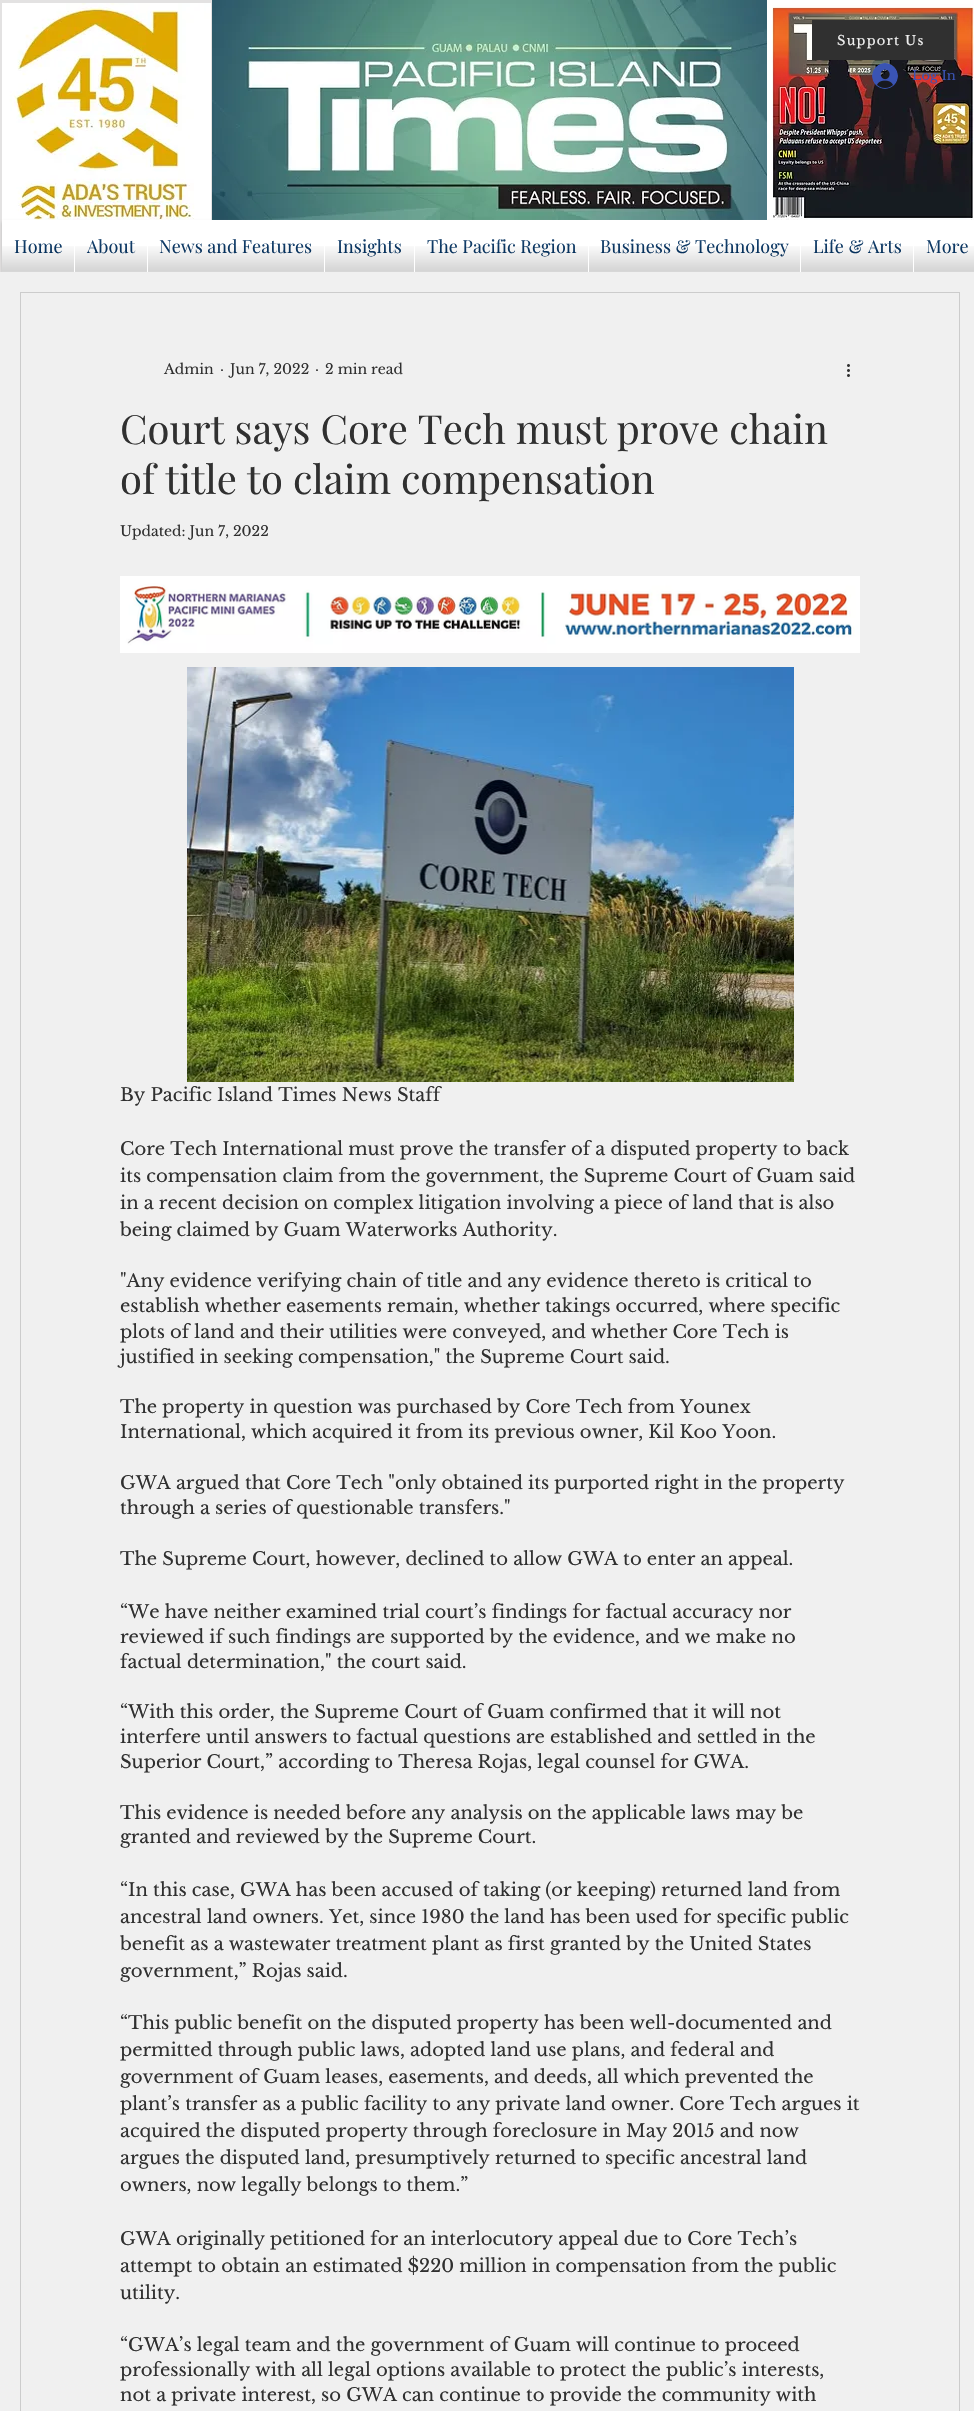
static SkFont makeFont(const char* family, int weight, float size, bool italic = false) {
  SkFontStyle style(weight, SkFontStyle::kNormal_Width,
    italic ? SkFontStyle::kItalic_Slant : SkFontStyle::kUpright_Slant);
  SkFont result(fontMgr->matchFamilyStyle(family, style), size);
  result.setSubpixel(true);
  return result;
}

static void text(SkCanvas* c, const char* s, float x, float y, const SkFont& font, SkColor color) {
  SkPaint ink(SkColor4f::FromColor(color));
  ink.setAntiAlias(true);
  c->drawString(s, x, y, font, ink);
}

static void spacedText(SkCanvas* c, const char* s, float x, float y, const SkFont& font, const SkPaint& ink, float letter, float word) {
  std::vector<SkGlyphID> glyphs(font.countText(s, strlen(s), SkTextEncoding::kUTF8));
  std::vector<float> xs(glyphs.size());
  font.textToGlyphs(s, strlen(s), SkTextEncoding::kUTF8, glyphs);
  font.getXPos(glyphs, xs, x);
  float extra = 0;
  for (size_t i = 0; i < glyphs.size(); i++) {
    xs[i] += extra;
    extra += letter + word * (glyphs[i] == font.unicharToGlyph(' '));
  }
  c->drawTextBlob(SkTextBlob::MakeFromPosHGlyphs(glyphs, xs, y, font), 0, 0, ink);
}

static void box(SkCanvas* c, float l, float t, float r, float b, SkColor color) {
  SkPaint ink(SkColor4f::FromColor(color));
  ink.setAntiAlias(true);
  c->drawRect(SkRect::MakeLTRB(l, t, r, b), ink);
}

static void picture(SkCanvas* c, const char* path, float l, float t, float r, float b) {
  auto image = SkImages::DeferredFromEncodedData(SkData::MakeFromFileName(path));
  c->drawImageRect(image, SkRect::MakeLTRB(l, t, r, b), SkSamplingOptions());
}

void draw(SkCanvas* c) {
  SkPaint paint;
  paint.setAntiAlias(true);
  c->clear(0xffe3e2e2);
  picture(c, "img_03.png", 767, 0, 974, 220);
  box(c, 812, 20, 954, 60, 0xff303030);
  SkFont face1 = makeFont("Libre Baskerville", 400, 13);
  paint.setColor(0xfff0f0f0);
  spacedText(c, "Support Us", 837, 45, face1, paint, 1.25f, 0);
  picture(c, "img_01.png", 2, 3, 211, 220);
  picture(c, "img_02.png", 212, 0, 767, 220);
  picture(c, "img_04.png", 872, 63, 898, 89);
  text(c, "Log In", 912, 80, face1, 0xff3a54b4);
  paint.setColor(0x99a29e9e);
  paint.setMaskFilter(SkMaskFilter::MakeBlur(kNormal_SkBlurStyle, 1.5f));
  c->drawRect(SkRect::MakeLTRB(2, 222, 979, 274), paint);
  paint.setMaskFilter(nullptr);
  box(c, 2, 220, 974, 272, 0xffffffff);
  SkFont face2 = makeFont("Playfair Display", 400, 18);
  text(c, "Home", 14, 253, face2, 0xff002e5d);
  picture(c, "img_05.png", 14, 240, 62, 253);
  picture(c, "img_06.png", 2, 246, 74, 272);
  text(c, "About", 87, 253, face2, 0xff002e5d);
  picture(c, "img_07.png", 87, 239, 134, 253);
  picture(c, "img_08.png", 75, 246, 147, 272);
  text(c, "News and Features", 159, 253, face2, 0xff002e5d);
  picture(c, "img_09.png", 160, 239, 312, 253);
  picture(c, "img_10.png", 148, 246, 324, 272);
  text(c, "Insights", 337, 253, face2, 0xff002e5d);
  picture(c, "img_11.png", 338, 239, 401, 253);
  picture(c, "img_12.png", 325, 246, 414, 272);
  text(c, "The Pacific Region", 427, 253, face2, 0xff002e5d);
  picture(c, "img_13.png", 427, 239, 575, 253);
  picture(c, "img_14.png", 415, 246, 588, 272);
  text(c, "Business & Technology", 600, 253, face2, 0xff002e5d);
  picture(c, "img_15.png", 601, 239, 788, 253);
  picture(c, "img_16.png", 589, 246, 800, 272);
  text(c, "Life & Arts", 813, 253, face2, 0xff002e5d);
  picture(c, "img_17.png", 813, 239, 900, 253);
  picture(c, "img_18.png", 801, 246, 913, 272);
  text(c, "More", 926, 253, face2, 0xff002e5d);
  picture(c, "img_19.png", 926, 240, 968, 253);
  picture(c, "img_20.png", 914, 246, 974, 272);
  box(c, 0, 272, 974, 2411, 0xfff0f0f0);
  paint.setStyle(SkPaint::kStroke_Style);
  paint.setStrokeWidth(1);
  paint.setColor(0xffcccccc);
  c->drawRect(SkRect::MakeLTRB(20.5f, 292.5f, 959.5f, 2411.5f), paint);
  SkFont face3 = makeFont("Libre Baskerville", 400, 14);
  text(c, "Admin", 164, 374, face3, 0xff303030);
  text(c, "·", 220, 374, face3, 0xff303030);
  text(c, "Jun 7, 2022", 230, 374, face3, 0xff303030);
  text(c, "·", 315, 374, face3, 0xff303030);
  text(c, "2 min read", 325, 374, face3, 0xff303030);
  picture(c, "img_21.png", 847, 364, 850, 377);
  SkFont face4 = makeFont("Playfair Display", 400, 40);
  text(c, "Court says Core Tech must prove chain", 120, 444, face4, 0xff303030);
  text(c, "of title to claim compensation", 120, 494, face4, 0xff303030);
  text(c, "Updated: Jun 7, 2022", 120, 536, face3, 0xff303030);
  picture(c, "img_22.png", 120, 576, 860, 653);
  picture(c, "img_23.png", 187, 667, 794, 1082);
  SkFont face5 = makeFont("Libre Baskerville", 400, 18);
  text(c, "By Pacific Island Times News Staff", 120, 1101, face5, 0xff303030);
  text(c, "Core Tech International must prove the transfer of a disputed property to back", 120, 1155, face5, 0xff303030);
  text(c, "its compensation claim from the government, the Supreme Court of Guam said", 120, 1182, face5, 0xff303030);
  text(c, "in a recent decision on complex litigation involving a piece of land that is also", 120, 1209, face5, 0xff303030);
  text(c, "being claimed by Guam Waterworks Authority.", 120, 1236, face5, 0xff303030);
  text(c, "\"Any evidence verifying chain of title and any evidence thereto is critical to", 120, 1287, face5, 0xff303030);
  text(c, "establish whether easements remain, whether takings occurred, where specific", 120, 1312, face5, 0xff303030);
  text(c, "plots of land and their utilities were conveyed, and whether Core Tech is", 120, 1338, face5, 0xff303030);
  text(c, "justified in seeking compensation,\" the Supreme Court said.", 120, 1363, face5, 0xff303030);
  text(c, "The property in question was purchased by Core Tech from Younex", 120, 1413, face5, 0xff303030);
  text(c, "International, which acquired it from its previous owner, Kil Koo Yoon.", 120, 1438, face5, 0xff303030);
  text(c, "GWA argued that Core Tech \"only obtained its purported right in the property", 120, 1489, face5, 0xff303030);
  text(c, "through a series of questionable transfers.\"", 120, 1514, face5, 0xff303030);
  text(c, "The Supreme Court, however, declined to allow GWA to enter an appeal.", 120, 1565, face5, 0xff303030);
  text(c, "“We have neither examined trial court’s findings for factual accuracy nor", 120, 1618, face5, 0xff303030);
  text(c, "reviewed if such findings are supported by the evidence, and we make no", 120, 1643, face5, 0xff303030);
  text(c, "factual determination,\" the court said.", 120, 1668, face5, 0xff303030);
  text(c, "“With this order, the Supreme Court of Guam confirmed that it will not", 120, 1718, face5, 0xff303030);
  text(c, "interfere until answers to factual questions are established and settled in the", 120, 1743, face5, 0xff303030);
  text(c, "Superior Court,” according to Theresa Rojas, legal counsel for GWA.", 120, 1768, face5, 0xff303030);
  text(c, "This evidence is needed before any analysis on the applicable laws may be", 120, 1819, face5, 0xff303030);
  text(c, "granted and reviewed by the Supreme Court.", 120, 1843, face5, 0xff303030);
  text(c, "“In this case, GWA has been accused of taking (or keeping) returned land from", 120, 1896, face5, 0xff303030);
  text(c, "ancestral land owners. Yet, since 1980 the land has been used for specific public", 120, 1923, face5, 0xff303030);
  text(c, "benefit as a wastewater treatment plant as first granted by the United States", 120, 1950, face5, 0xff303030);
  text(c, "government,” Rojas said.", 120, 1977, face5, 0xff303030);
  text(c, "“This public benefit on the disputed property has been well-documented and", 120, 2029, face5, 0xff303030);
  text(c, "permitted through public laws, adopted land use plans, and federal and", 120, 2056, face5, 0xff303030);
  text(c, "government of Guam leases, easements, and deeds, all which prevented the", 120, 2083, face5, 0xff303030);
  text(c, "plant’s transfer as a public facility to any private land owner. Core Tech argues it", 120, 2110, face5, 0xff303030);
  text(c, "acquired the disputed property through foreclosure in May 2015 and now", 120, 2137, face5, 0xff303030);
  text(c, "argues the disputed land, presumptively returned to specific ancestral land", 120, 2164, face5, 0xff303030);
  text(c, "owners, now legally belongs to them.”", 120, 2191, face5, 0xff303030);
  text(c, "GWA originally petitioned for an interlocutory appeal due to Core Tech’s", 120, 2245, face5, 0xff303030);
  text(c, "attempt to obtain an estimated $220 million in compensation from the public", 120, 2272, face5, 0xff303030);
  text(c, "utility.", 120, 2299, face5, 0xff303030);
  text(c, "“GWA’s legal team and the government of Guam will continue to proceed", 120, 2351, face5, 0xff303030);
  text(c, "professionally with all legal options available to protect the public’s interests,", 120, 2376, face5, 0xff303030);
  text(c, "not a private interest, so GWA can continue to provide the community with", 120, 2401, face5, 0xff303030);
}
